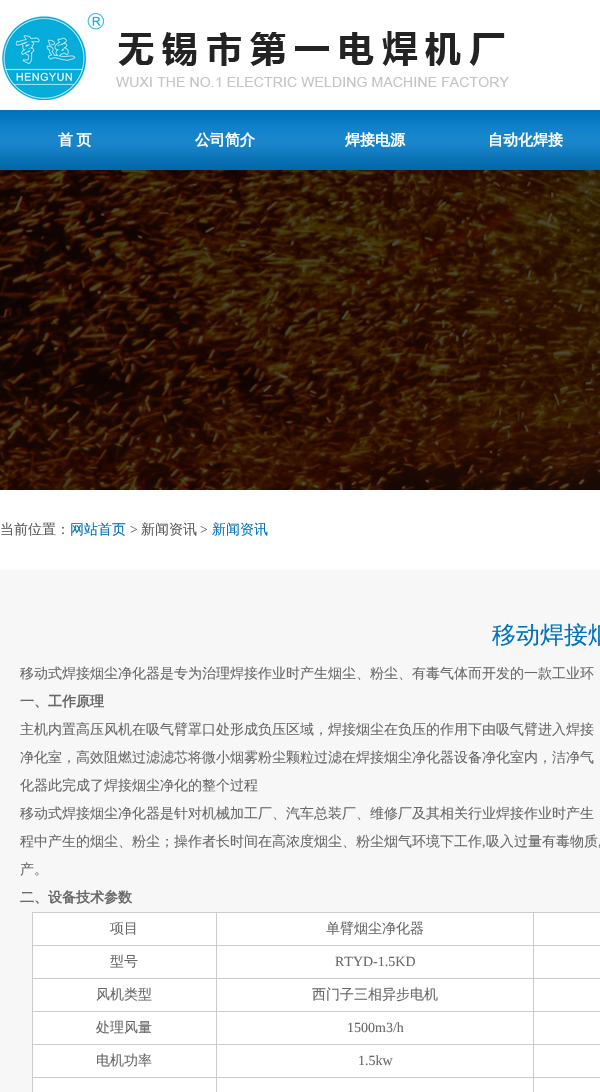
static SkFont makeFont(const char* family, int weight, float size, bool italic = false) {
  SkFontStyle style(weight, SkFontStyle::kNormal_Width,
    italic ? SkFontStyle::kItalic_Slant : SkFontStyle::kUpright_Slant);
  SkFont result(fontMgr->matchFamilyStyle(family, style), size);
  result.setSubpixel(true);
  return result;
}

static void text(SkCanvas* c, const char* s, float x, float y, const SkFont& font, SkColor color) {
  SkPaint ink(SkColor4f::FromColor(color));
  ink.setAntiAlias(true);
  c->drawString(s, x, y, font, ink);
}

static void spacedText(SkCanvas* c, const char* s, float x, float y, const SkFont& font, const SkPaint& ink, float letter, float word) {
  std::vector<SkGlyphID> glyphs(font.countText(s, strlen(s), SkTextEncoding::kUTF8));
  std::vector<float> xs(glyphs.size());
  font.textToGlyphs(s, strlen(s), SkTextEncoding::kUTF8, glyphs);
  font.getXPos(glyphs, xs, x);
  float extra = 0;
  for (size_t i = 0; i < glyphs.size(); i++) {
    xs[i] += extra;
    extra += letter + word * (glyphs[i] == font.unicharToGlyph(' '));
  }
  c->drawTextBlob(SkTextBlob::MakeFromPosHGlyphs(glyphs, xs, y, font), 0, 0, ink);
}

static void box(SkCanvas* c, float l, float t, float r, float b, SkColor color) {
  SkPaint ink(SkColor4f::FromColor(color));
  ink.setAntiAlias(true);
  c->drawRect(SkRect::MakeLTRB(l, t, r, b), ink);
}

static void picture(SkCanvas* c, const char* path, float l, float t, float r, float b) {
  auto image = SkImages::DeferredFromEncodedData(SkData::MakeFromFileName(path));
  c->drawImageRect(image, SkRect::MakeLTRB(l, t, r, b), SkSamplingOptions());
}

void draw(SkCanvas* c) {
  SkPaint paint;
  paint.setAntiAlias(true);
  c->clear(0xffffffff);
  picture(c, "img_01.png", 2, 13, 509, 100);
  picture(c, "img_02.png", 0, 110, 600, 170);
  SkFont face1 = makeFont("WenQuanYi Zen Hei", 700, 15);
  paint.setColor(0xffffffff);
  spacedText(c, "首 页", 58, 145, face1, paint, 0, -1);
  text(c, "公司简介", 195, 145, face1, 0xffffffff);
  text(c, "焊接电源", 345, 145, face1, 0xffffffff);
  text(c, "自动化焊接", 488, 145, face1, 0xffffffff);
  picture(c, "img_03.png", 0, 170, 600, 490);
  SkFont face2 = makeFont("WenQuanYi Zen Hei", 500, 14);
  text(c, "当前位置：", 0, 534, face2, 0xff5a5a5a);
  text(c, "网站首页", 70, 534, face2, 0xff0173bc);
  SkFont face3 = makeFont("Liberation Serif", 400, 14);
  text(c, ">", 130, 534, face3, 0xff5a5a5a);
  text(c, "新闻资讯", 141, 534, face2, 0xff5a5a5a);
  text(c, ">", 200, 534, face3, 0xff5a5a5a);
  text(c, "新闻资讯", 212, 534, face2, 0xff0173bc);
  box(c, 0, 570, 600, 1092, 0xfff7f7f7);
  SkFont face4 = makeFont("WenQuanYi Zen Hei", 500, 24);
  text(c, "移动焊接烟", 492, 643, face4, 0xff0173bc);
  text(c, "移动式焊接烟尘净化器是专为治理焊接作业时产生烟尘、粉尘、有毒气体而开发的一款工业环", 20, 678, face2, 0xff696868);
  SkFont face5 = makeFont("WenQuanYi Zen Hei", 700, 14);
  text(c, "一、工作原理", 20, 706, face5, 0xff696868);
  text(c, "主机内置高压风机在吸气臂罩口处形成负压区域，焊接烟尘在负压的作用下由吸气臂进入焊接", 20, 734, face2, 0xff696868);
  text(c, "净化室，高效阻燃过滤滤芯将微小烟雾粉尘颗粒过滤在焊接烟尘净化器设备净化室内，洁净气", 20, 762, face2, 0xff696868);
  text(c, "化器此完成了焊接烟尘净化的整个过程", 20, 790, face2, 0xff696868);
  text(c, "移动式焊接烟尘净化器是针对机械加工厂、汽车总装厂、维修厂及其相关行业焊接作业时产生", 20, 818, face2, 0xff696868);
  text(c, "程中产生的烟尘、粉尘；操作者长时间在高浓度烟尘、粉尘烟气环境下工作", 20, 846, face2, 0xff696868);
  text(c, ",", 482, 846, face3, 0xff696868);
  text(c, "吸入过量有毒物质", 486, 846, face2, 0xff696868);
  text(c, ",", 598, 846, face3, 0xff696868);
  text(c, "产。", 20, 874, face2, 0xff696868);
  text(c, "二、设备技术参数", 20, 902, face5, 0xff696868);
  box(c, 32, 912, 600, 1092, 0xffcccccc);
  box(c, 33, 913, 216, 945, 0xffffffff);
  text(c, "项目", 110, 933, face2, 0xff696868);
  box(c, 217, 913, 533, 945, 0xffffffff);
  text(c, "单臂烟尘净化器", 326, 933, face2, 0xff696868);
  box(c, 534, 913, 600, 945, 0xffffffff);
  box(c, 33, 946, 216, 978, 0xffffffff);
  text(c, "型号", 110, 966, face2, 0xff696868);
  box(c, 217, 946, 533, 978, 0xffffffff);
  text(c, "RTYD-1.5KD", 335, 966, face3, 0xff696868);
  box(c, 534, 946, 600, 978, 0xffffffff);
  box(c, 33, 979, 216, 1011, 0xffffffff);
  text(c, "风机类型", 96, 999, face2, 0xff696868);
  box(c, 217, 979, 533, 1011, 0xffffffff);
  text(c, "西门子三相异步电机", 312, 999, face2, 0xff696868);
  box(c, 534, 979, 600, 1011, 0xffffffff);
  box(c, 33, 1012, 216, 1044, 0xffffffff);
  text(c, "处理风量", 96, 1032, face2, 0xff696868);
  box(c, 217, 1012, 533, 1044, 0xffffffff);
  text(c, "1500m3/h", 347, 1032, face3, 0xff696868);
  box(c, 534, 1012, 600, 1044, 0xffffffff);
  box(c, 33, 1045, 216, 1077, 0xffffffff);
  text(c, "电机功率", 96, 1065, face2, 0xff696868);
  box(c, 217, 1045, 533, 1077, 0xffffffff);
  text(c, "1.5kw", 358, 1065, face3, 0xff696868);
  box(c, 534, 1045, 600, 1077, 0xffffffff);
  box(c, 33, 1078, 216, 1092, 0xffffffff);
  box(c, 217, 1078, 533, 1092, 0xffffffff);
  box(c, 534, 1078, 600, 1092, 0xffffffff);
}
